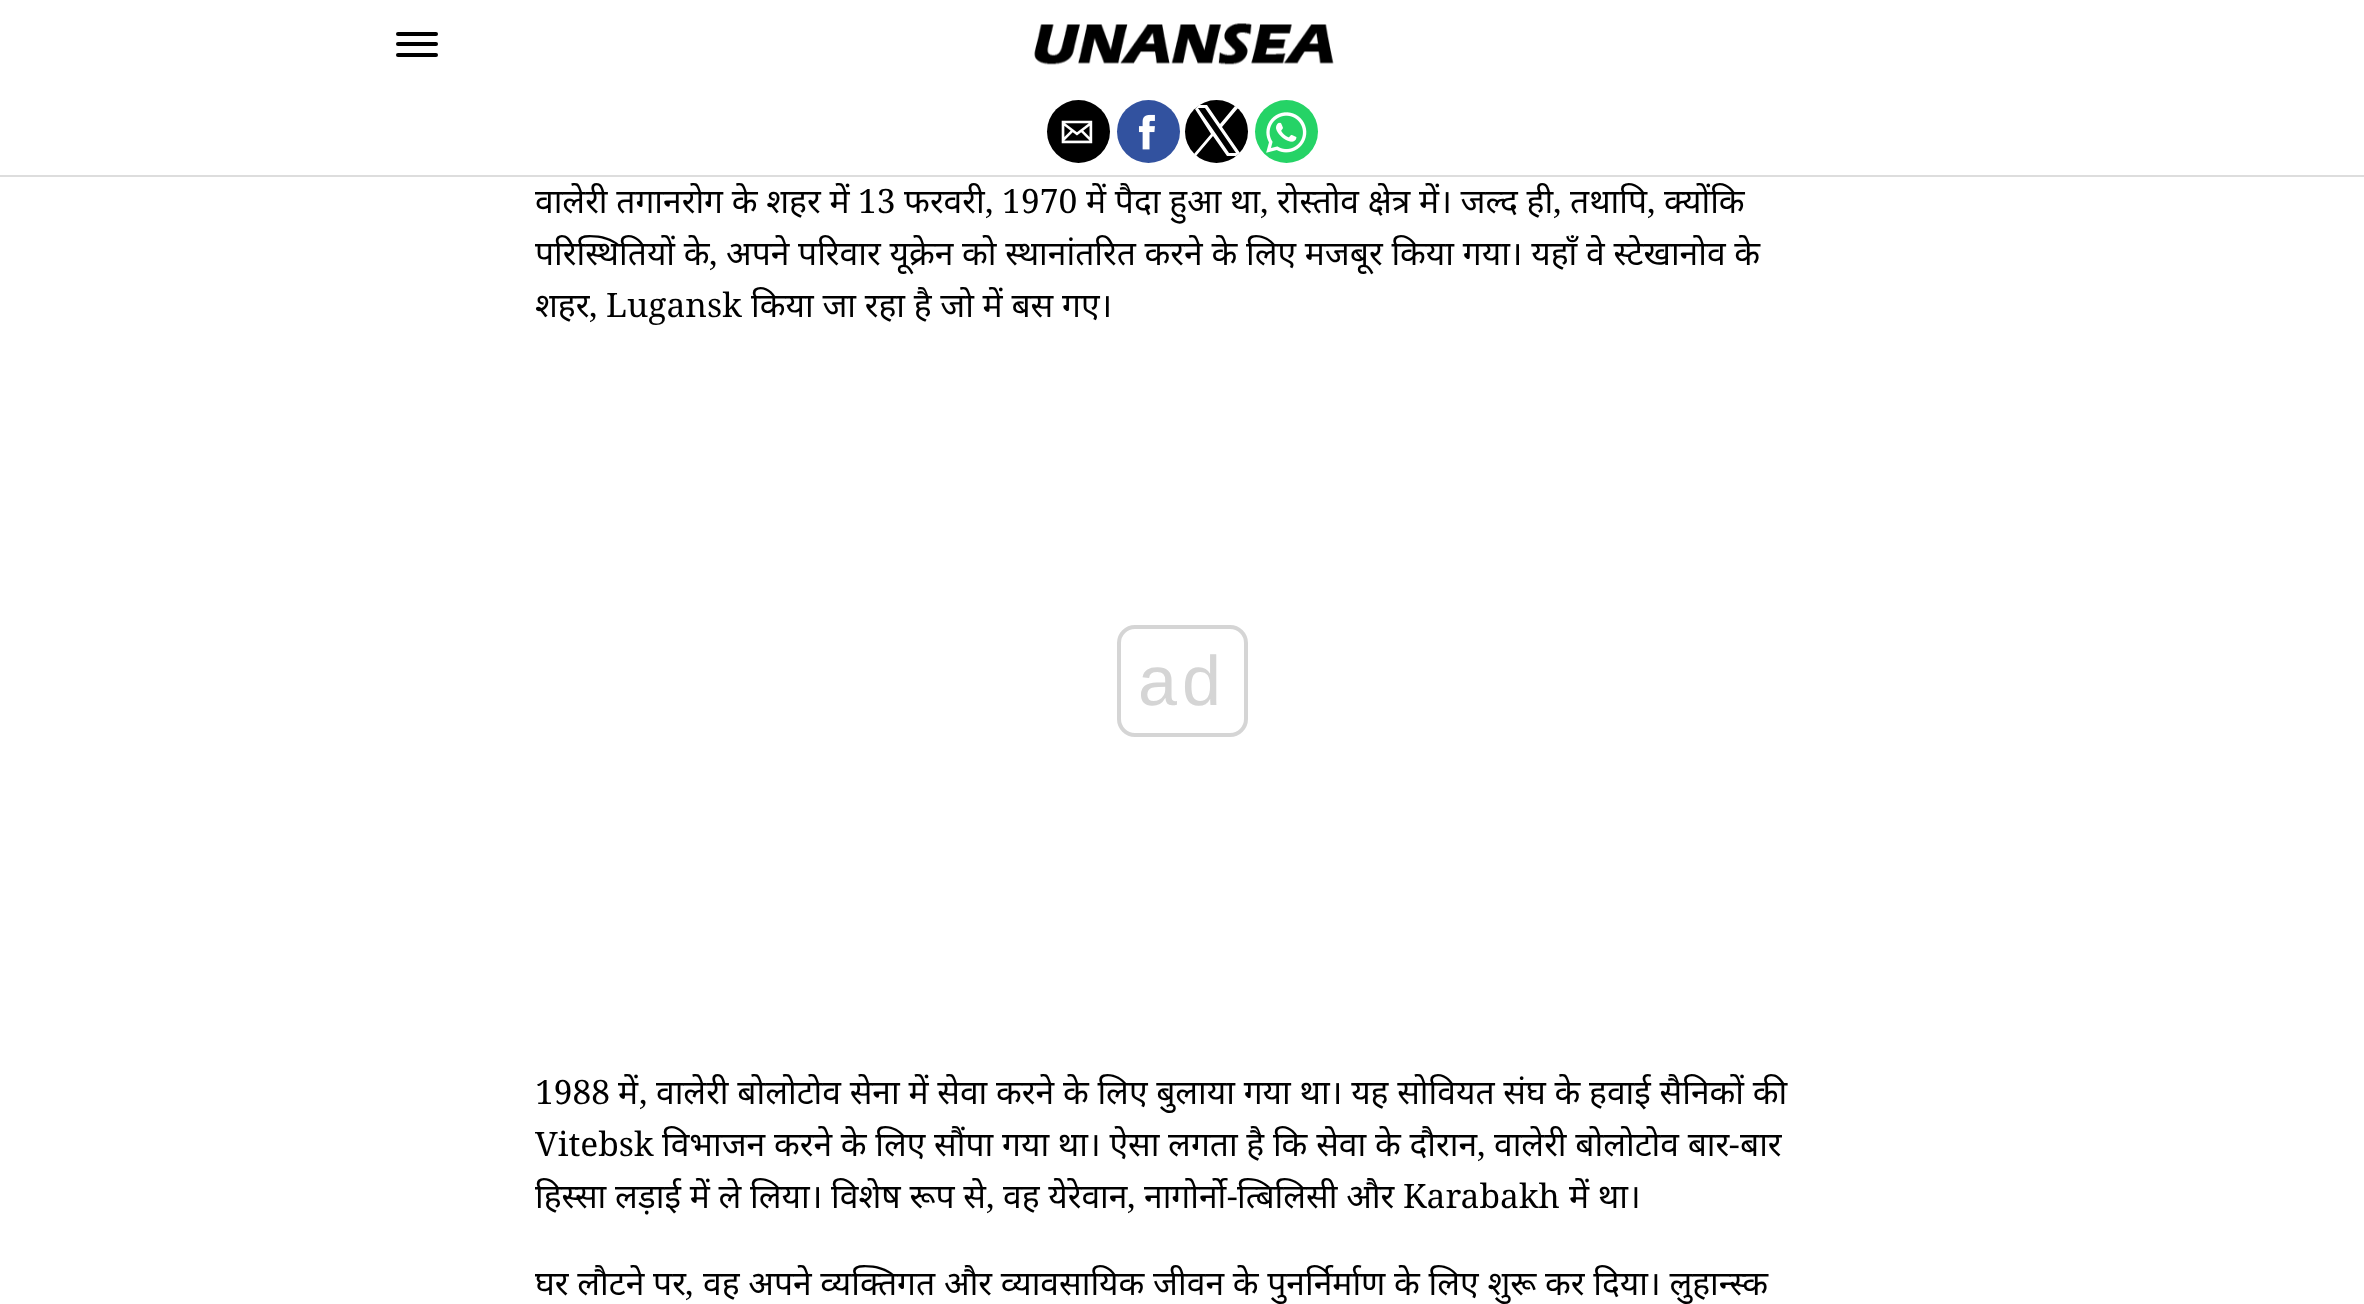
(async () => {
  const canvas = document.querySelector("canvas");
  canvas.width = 2364;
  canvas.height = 1304;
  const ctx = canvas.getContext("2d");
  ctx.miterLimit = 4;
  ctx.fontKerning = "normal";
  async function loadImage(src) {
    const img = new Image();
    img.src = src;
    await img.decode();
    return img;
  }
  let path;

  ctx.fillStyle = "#ffffff";
  ctx.fillRect(0, 0, 2364, 1304);
  ctx.fillStyle = "#000000";
  ctx.beginPath();
  ctx.roundRect(396, 32, 42, 4, 2);
  ctx.fill();
  ctx.beginPath();
  ctx.roundRect(396, 42, 42, 4, 2);
  ctx.fill();
  ctx.beginPath();
  ctx.roundRect(396, 53, 42, 4, 2);
  ctx.fill();
  ctx.drawImage(await loadImage("img/1.png"), 1034, 23, 300, 42);
  ctx.fillStyle = "#dddddd";
  ctx.fillRect(0, 175, 2364, 2);
  ctx.fillStyle = "#000000";
  ctx.beginPath();
  ctx.arc(1078.5, 131.5, 31.5, 0, Math.PI * 2);
  ctx.fill();
  ctx.drawImage(await loadImage("img/2.png"), 1061, 120, 32, 24);
  ctx.fillStyle = "#32529f";
  ctx.beginPath();
  ctx.arc(1148.5, 131.5, 31.5, 0, Math.PI * 2);
  ctx.fill();
  ctx.drawImage(await loadImage("img/3.png"), 1138, 114, 17, 36);
  ctx.fillStyle = "#000000";
  ctx.beginPath();
  ctx.arc(1216.5, 131.5, 31.5, 0, Math.PI * 2);
  ctx.fill();
  ctx.fillStyle = "#ffffff";
  path = new Path2D("M1222 127L1240 153L1236 156H1227L1213 136L1196 156L1194 154L1211 134L1195 109L1199 105H1207L1220 124L1235 106L1238 108ZM1216 134L1229 153H1236L1205 108H1198Z");
  ctx.fill(path, "evenodd");
  ctx.fillStyle = "#25d366";
  ctx.beginPath();
  ctx.arc(1286.5, 131.5, 31.5, 0, Math.PI * 2);
  ctx.fill();
  ctx.drawImage(await loadImage("img/4.png"), 1266, 112, 41, 41);
  ctx.beginPath();
  ctx.roundRect(1119, 627, 127, 108, 16);
  ctx.strokeStyle = "#d5d5d5";
  ctx.lineWidth = 4;
  ctx.stroke();
  ctx.font = "33.6px Noto Sans";
  ctx.fillStyle = "#000000";
  ctx.fillText("वालेरी तगानरोग के शहर में", 535, 213);
  ctx.font = "33.6px Noto Serif";
  ctx.fillText("13", 858, 213);
  ctx.font = "33.6px Noto Sans";
  ctx.fillText("फरवरी", 904, 213);
  ctx.font = "33.6px Noto Serif";
  ctx.fillText(", 1970", 985, 213);
  ctx.font = "33.6px Noto Sans";
  ctx.fillText("में पैदा हुआ था", 1086, 213);
  ctx.font = "33.6px Noto Serif";
  ctx.fillText(",", 1260, 213);
  ctx.font = "33.6px Noto Sans";
  ctx.fillText("रोस्तोव क्षेत्र में। जल्द ही", 1277, 213);
  ctx.font = "33.6px Noto Serif";
  ctx.fillText(",", 1553, 213);
  ctx.font = "33.6px Noto Sans";
  ctx.fillText("तथापि", 1570, 213);
  ctx.font = "33.6px Noto Serif";
  ctx.fillText(",", 1647, 213);
  ctx.font = "33.6px Noto Sans";
  ctx.fillText("क्योंकि", 1664, 213);
  ctx.fillText("परिस्थितियों के", 535, 265);
  ctx.font = "33.6px Noto Serif";
  ctx.fillText(",", 709, 265);
  ctx.font = "33.6px Noto Sans";
  ctx.fillText("अपने परिवार यूक्रेन को स्थानांतरित करने के लिए मजबूर किया गया। यहाँ वे स्टेखानोव के", 726, 265);
  ctx.fillText("शहर", 535, 317);
  ctx.font = "33.6px Noto Serif";
  ctx.fillText(", Lugansk", 589, 317);
  ctx.font = "33.6px Noto Sans";
  ctx.fillText("किया जा रहा है जो में बस गए।", 751, 317);
  ctx.letterSpacing = "5px";
  ctx.font = "70px Liberation Sans";
  ctx.fillStyle = "#d5d5d5";
  ctx.fillText("ad", 1138, 705);
  ctx.letterSpacing = "0px";
  ctx.font = "33.6px Noto Serif";
  ctx.fillStyle = "#000000";
  ctx.fillText("1988", 535, 1104);
  ctx.font = "33.6px Noto Sans";
  ctx.fillText("में", 618, 1104);
  ctx.font = "33.6px Noto Serif";
  ctx.fillText(",", 639, 1104);
  ctx.font = "33.6px Noto Sans";
  ctx.fillText("वालेरी बोलोटोव सेना में सेवा करने के लिए बुलाया गया था। यह सोवियत संघ के हवाई सैनिकों की", 656, 1104);
  ctx.font = "33.6px Noto Serif";
  ctx.fillText("Vitebsk", 535, 1156);
  ctx.font = "33.6px Noto Sans";
  ctx.fillText("विभाजन करने के लिए सौंपा गया था। ऐसा लगता है कि सेवा के दौरान", 662, 1156);
  ctx.fillText("वालेरी बोलोटोव बार", 1494, 1156);
  ctx.font = "33.6px Noto Serif";
  ctx.fillText("-", 1729, 1156);
  ctx.font = "33.6px Noto Sans";
  ctx.fillText("बार", 1740, 1156);
  ctx.font = "33.6px Noto Serif";
  ctx.fillText(",", 1477, 1156);
  ctx.font = "33.6px Noto Sans";
  for (const [text, x, y] of [
    ["हिस्सा लड़ाई में ले लिया। विशेष रूप से", 535, 1208],
    ["वह येरेवान", 1003, 1208],
    ["नागोर्नो", 1144, 1208],
  ]) {
    ctx.fillText(text, x, y);
  }
  ctx.font = "33.6px Noto Serif";
  ctx.fillText("-", 1227, 1208);
  ctx.font = "33.6px Noto Sans";
  ctx.fillText("त्बिलिसी और", 1237, 1208);
  ctx.font = "33.6px Noto Serif";
  ctx.fillText("Karabakh", 1403, 1208);
  ctx.font = "33.6px Noto Sans";
  ctx.fillText("में था।", 1569, 1208);
  ctx.font = "33.6px Noto Serif";
  ctx.fillText(",", 986, 1208);
  ctx.fillText(",", 1127, 1208);
  ctx.font = "33.6px Noto Sans";
  ctx.fillText("घर लौटने पर", 535, 1295);
  ctx.font = "33.6px Noto Serif";
  ctx.fillText(",", 685, 1295);
  ctx.font = "33.6px Noto Sans";
  ctx.fillText("वह अपने व्यक्तिगत और व्यावसायिक जीवन के पुनर्निर्माण के लिए शुरू कर दिया। लुहान्स्क", 703, 1295);
})();
